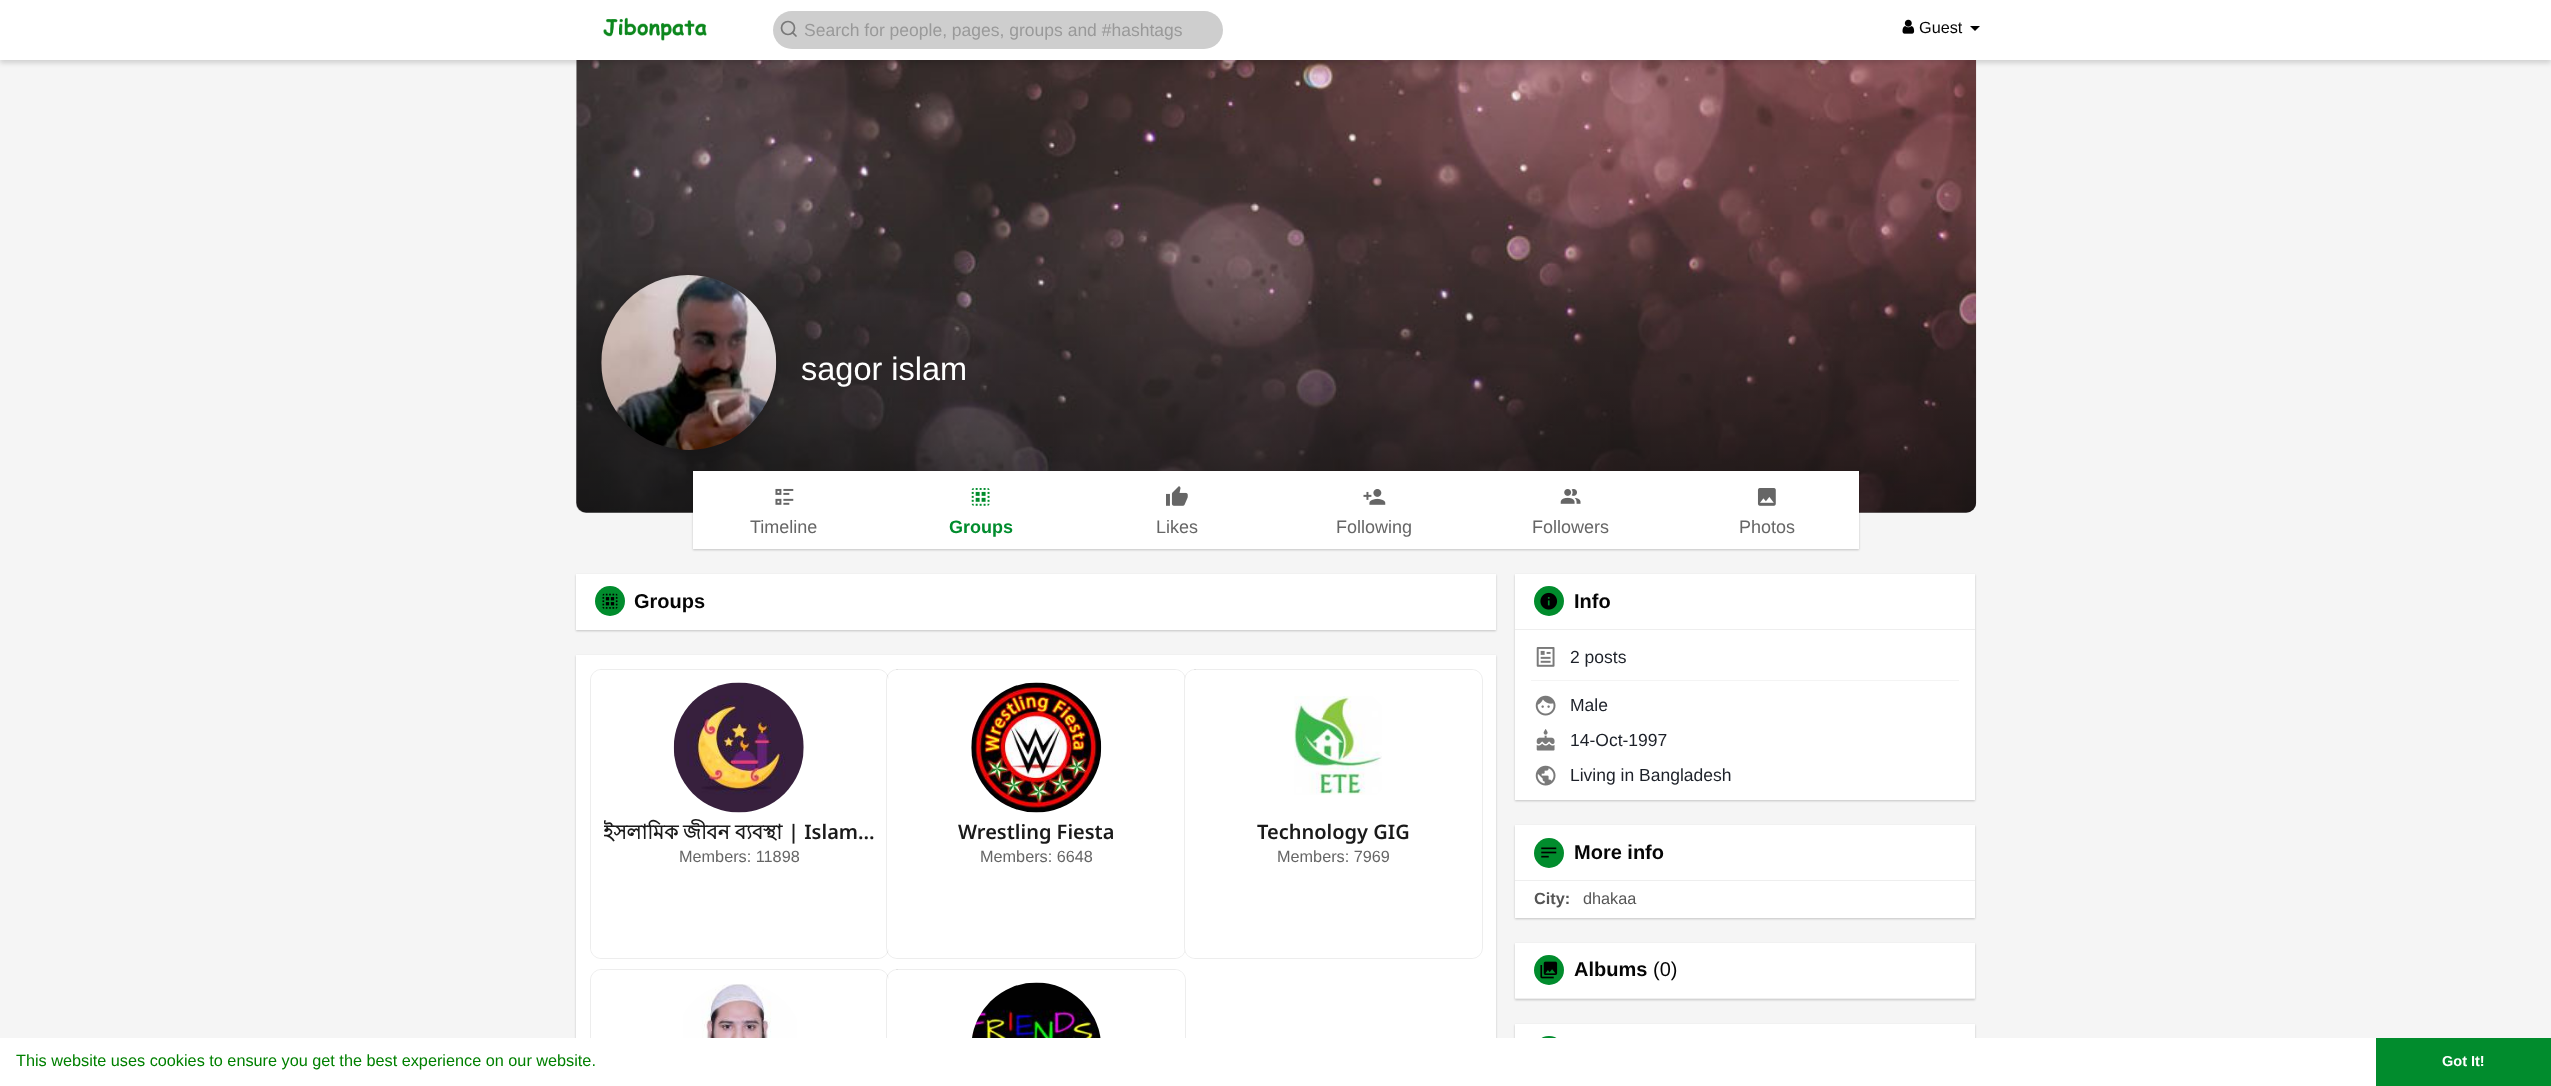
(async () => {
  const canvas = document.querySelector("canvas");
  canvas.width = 2551;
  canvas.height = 1086;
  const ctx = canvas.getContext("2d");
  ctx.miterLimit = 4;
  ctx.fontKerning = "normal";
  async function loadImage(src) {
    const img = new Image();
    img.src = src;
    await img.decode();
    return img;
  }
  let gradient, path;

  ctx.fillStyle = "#f5f5f5";
  ctx.fillRect(0, 0, 2551, 1086);
  ctx.fillStyle = "#ffffff";
  ctx.beginPath();
  ctx.roundRect(576, 56, 1400, 457, [0, 0, 10, 10]);
  ctx.fill();
  ctx.drawImage(await loadImage("img/3.png"), 576, 60, 1401, 453);
  ctx.fillStyle = "rgba(0, 0, 0, 0.15)";
  ctx.filter = "blur(2.5px)";
  ctx.beginPath();
  ctx.rect(0, 3, 2551, 60);
  ctx.fill();
  ctx.filter = "none";
  ctx.fillStyle = "#ffffff";
  ctx.fillRect(0, 0, 2551, 60);
  ctx.drawImage(await loadImage("img/1.png"), 603, 17, 104, 24);
  ctx.fillStyle = "#cecece";
  ctx.beginPath();
  ctx.roundRect(773, 11, 450, 38, 19);
  ctx.fill();
  ctx.beginPath();
  ctx.arc(788, 28, 6.5, 0, Math.PI * 2);
  ctx.strokeStyle = "#787878";
  ctx.lineWidth = 1.7;
  ctx.stroke();
  path = new Path2D("M796 36L792.5 32.5");
  ctx.lineCap = "round";
  ctx.lineJoin = "round";
  ctx.stroke(path);
  ctx.drawImage(await loadImage("img/2.png"), 1902, 19, 13, 15);
  ctx.fillStyle = "#000000";
  path = new Path2D("M1970 26H1980L1975 31Z");
  ctx.fill(path);
  gradient = ctx.createLinearGradient(1276, 262, 1276, 513);
  gradient.addColorStop(0, "rgba(0, 0, 0, 0)");
  gradient.addColorStop(1, "rgba(0, 0, 0, 0.45)");
  ctx.fillStyle = gradient;
  ctx.beginPath();
  ctx.roundRect(576, 263, 1400, 250, 10);
  ctx.fill();
  ctx.fillStyle = "rgba(0, 0, 0, 0.2)";
  ctx.filter = "blur(1px)";
  ctx.beginPath();
  ctx.rect(693, 473, 1166, 77);
  ctx.fill();
  ctx.filter = "none";
  ctx.fillStyle = "#ffffff";
  ctx.fillRect(693, 471, 1166, 78);
  ctx.fillStyle = "rgba(0, 0, 0, 0.15)";
  ctx.filter = "blur(6px)";
  ctx.beginPath();
  ctx.roundRect(601, 278, 175, 175, 87.5);
  ctx.fill();
  ctx.filter = "none";
  ctx.drawImage(await loadImage("img/4.png"), 601, 275, 176, 175);
  ctx.drawImage(await loadImage("img/5.png"), 775, 488, 19, 17);
  ctx.drawImage(await loadImage("img/6.png"), 971, 488, 19, 18);
  ctx.drawImage(await loadImage("img/7.png"), 1166, 486, 22, 20);
  ctx.drawImage(await loadImage("img/8.png"), 1363, 489, 23, 16);
  ctx.drawImage(await loadImage("img/9.png"), 1560, 489, 21, 15);
  ctx.drawImage(await loadImage("img/10.png"), 1757, 488, 19, 18);
  ctx.fillStyle = "rgba(0, 0, 0, 0.2)";
  ctx.filter = "blur(1px)";
  ctx.beginPath();
  ctx.rect(576, 575, 920, 56);
  ctx.fill();
  ctx.filter = "none";
  ctx.fillStyle = "#ffffff";
  ctx.fillRect(576, 574, 920, 56);
  ctx.fillStyle = "#018c2d";
  ctx.beginPath();
  ctx.arc(610, 601, 15, 0, Math.PI * 2);
  ctx.fill();
  ctx.drawImage(await loadImage("img/11.png"), 602, 593, 16, 16);
  ctx.fillStyle = "rgba(0, 0, 0, 0.2)";
  ctx.filter = "blur(1px)";
  ctx.beginPath();
  ctx.rect(576, 656, 920, 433);
  ctx.fill();
  ctx.filter = "none";
  ctx.fillStyle = "#ffffff";
  ctx.fillRect(576, 655, 920, 383);
  ctx.beginPath();
  ctx.roundRect(590.5, 669.5, 298, 289, 10.5);
  ctx.strokeStyle = "#ededed";
  ctx.lineWidth = 1;
  ctx.lineJoin = "miter";
  ctx.stroke();
  ctx.beginPath();
  ctx.roundRect(591, 670, 297, 288, 10);
  ctx.fill();
  ctx.drawImage(await loadImage("img/12.png"), 673, 682, 131, 131);
  ctx.beginPath();
  ctx.roundRect(886.5, 669.5, 299, 289, 10.5);
  ctx.strokeStyle = "rgba(0, 0, 0, 0.07)";
  ctx.stroke();
  ctx.beginPath();
  ctx.roundRect(888, 670, 297, 288, 10);
  ctx.fill();
  ctx.drawImage(await loadImage("img/13.png"), 971, 682, 131, 131);
  ctx.beginPath();
  ctx.roundRect(1184.5, 669.5, 298, 289, 10.5);
  ctx.stroke();
  ctx.beginPath();
  ctx.roundRect(1185, 670, 296, 288, 10);
  ctx.fill();
  ctx.drawImage(await loadImage("img/14.png"), 1294, 696, 88, 99);
  ctx.beginPath();
  ctx.roundRect(590.5, 969.5, 298, 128, 10.5);
  ctx.strokeStyle = "#ededed";
  ctx.stroke();
  ctx.beginPath();
  ctx.roundRect(591, 970, 297, 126, 10);
  ctx.fill();
  ctx.drawImage(await loadImage("img/15.png"), 683, 984, 114, 54);
  ctx.beginPath();
  ctx.roundRect(886.5, 969.5, 299, 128, 10.5);
  ctx.strokeStyle = "rgba(0, 0, 0, 0.07)";
  ctx.stroke();
  ctx.beginPath();
  ctx.roundRect(888, 970, 297, 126, 10);
  ctx.fill();
  ctx.drawImage(await loadImage("img/16.png"), 972, 982, 129, 56);
  ctx.fillStyle = "rgba(0, 0, 0, 0.2)";
  ctx.filter = "blur(1px)";
  ctx.beginPath();
  ctx.rect(1515, 575, 460, 226);
  ctx.fill();
  ctx.filter = "none";
  ctx.fillStyle = "#ffffff";
  ctx.fillRect(1515, 574, 460, 226);
  ctx.fillStyle = "#eeeeee";
  ctx.fillRect(1515, 629, 460, 1);
  ctx.fillStyle = "#018c2d";
  ctx.beginPath();
  ctx.arc(1549, 601, 15, 0, Math.PI * 2);
  ctx.fill();
  ctx.drawImage(await loadImage("img/17.png"), 1540, 592, 18, 18);
  ctx.drawImage(await loadImage("img/18.png"), 1536, 647, 19, 20);
  ctx.fillStyle = "#f4f4f4";
  ctx.fillRect(1531, 680, 428, 1);
  ctx.drawImage(await loadImage("img/19.png"), 1535, 695, 21, 21);
  ctx.drawImage(await loadImage("img/20.png"), 1536, 729, 19, 22);
  ctx.drawImage(await loadImage("img/21.png"), 1535, 765, 21, 21);
  ctx.fillStyle = "rgba(0, 0, 0, 0.2)";
  ctx.filter = "blur(1px)";
  ctx.beginPath();
  ctx.rect(1515, 826, 460, 93);
  ctx.fill();
  ctx.filter = "none";
  ctx.fillStyle = "#ffffff";
  ctx.fillRect(1515, 825, 460, 93);
  ctx.fillStyle = "#eeeeee";
  ctx.fillRect(1515, 880, 460, 1);
  ctx.fillStyle = "#018c2d";
  ctx.beginPath();
  ctx.arc(1549, 853, 15, 0, Math.PI * 2);
  ctx.fill();
  ctx.drawImage(await loadImage("img/22.png"), 1541, 847, 16, 11);
  ctx.fillStyle = "rgba(0, 0, 0, 0.2)";
  ctx.filter = "blur(1px)";
  ctx.beginPath();
  ctx.rect(1515, 944, 460, 56);
  ctx.fill();
  ctx.filter = "none";
  ctx.fillStyle = "#ffffff";
  ctx.fillRect(1515, 943, 460, 55);
  ctx.fillStyle = "#eeeeee";
  ctx.fillRect(1515, 998, 460, 1);
  ctx.fillStyle = "#018c2d";
  ctx.beginPath();
  ctx.arc(1549, 970, 15, 0, Math.PI * 2);
  ctx.fill();
  ctx.drawImage(await loadImage("img/23.png"), 1540, 961, 18, 18);
  ctx.fillStyle = "rgba(0, 0, 0, 0.2)";
  ctx.filter = "blur(1px)";
  ctx.beginPath();
  ctx.rect(1515, 1025, 460, 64);
  ctx.fill();
  ctx.filter = "none";
  ctx.fillStyle = "#ffffff";
  ctx.fillRect(1515, 1024, 460, 14);
  ctx.fillStyle = "#018c2d";
  ctx.beginPath();
  ctx.arc(1549, 1051, 15, 0, Math.PI * 2);
  ctx.fill();
  ctx.fillStyle = "#ffffff";
  ctx.fillRect(0, 1038, 2376, 48);
  ctx.fillStyle = "#018c2d";
  ctx.fillRect(2376, 1038, 175, 48);
  ctx.font = "17.5px Liberation Sans";
  ctx.fillStyle = "#999999";
  ctx.fillText("Search for people, pages, groups and #hashtags", 804, 36);
  ctx.font = "16.25px Liberation Sans";
  ctx.fillStyle = "#050505";
  ctx.fillText("Guest", 1919, 33);
  ctx.font = "32.5px Liberation Sans";
  ctx.fillStyle = "#ffffff";
  ctx.fillText("sagor islam", 801, 380);
  ctx.font = "18px Liberation Sans";
  ctx.fillStyle = "#666666";
  ctx.fillText("Timeline", 750, 533);
  ctx.font = "bold 18px Liberation Sans";
  ctx.fillStyle = "#018c2d";
  ctx.fillText("Groups", 949, 533);
  ctx.font = "18px Liberation Sans";
  ctx.fillStyle = "#666666";
  for (const [text, x, y] of [
    ["Likes", 1156, 533],
    ["Following", 1336, 533],
    ["Followers", 1532, 533],
    ["Photos", 1739, 533],
  ]) {
    ctx.fillText(text, x, y);
  }
  ctx.font = "bold 20px Liberation Sans";
  ctx.fillStyle = "#050505";
  ctx.fillText("Groups", 634, 608);
  ctx.save();
  ctx.beginPath();
  ctx.rect(604, 818, 271, 28);
  ctx.clip();
  ctx.font = "bold 20px Lohit Bengali";
  ctx.fillStyle = "#1a1a1a";
  ctx.fillText("ইসলামিক", 603, 839);
  ctx.restore();
  ctx.font = "bold 20px Lohit Bengali";
  ctx.fillStyle = "#1a1a1a";
  ctx.fillText("জীবন", 683, 839);
  ctx.fillText("ব্যবস্থা", 735, 839);
  ctx.font = "600 20px Noto Sans";
  ctx.fillText("| Islam…", 788, 839);
  ctx.font = "16.25px Liberation Sans";
  ctx.fillStyle = "#666666";
  ctx.fillText("Members: 11898", 679, 862);
  ctx.font = "600 20px Noto Sans";
  ctx.fillStyle = "#1a1a1a";
  ctx.fillText("Wrestling Fiesta", 958, 839);
  ctx.font = "16.25px Liberation Sans";
  ctx.fillStyle = "#666666";
  ctx.fillText("Members: 6648", 980, 862);
  ctx.font = "600 20px Noto Sans";
  ctx.fillStyle = "#1a1a1a";
  ctx.fillText("Technology GIG", 1257, 839);
  ctx.font = "16.25px Liberation Sans";
  ctx.fillStyle = "#666666";
  ctx.fillText("Members: 7969", 1277, 862);
  ctx.font = "bold 20px Liberation Sans";
  ctx.fillStyle = "#050505";
  ctx.fillText("Info", 1574, 608);
  ctx.font = "17.5px Liberation Sans";
  ctx.fillStyle = "#1d2129";
  for (const [text, x, y] of [
    ["2 posts", 1570, 663],
    ["Male", 1570, 711],
    ["14-Oct-1997", 1570, 746],
    ["Living in Bangladesh", 1570, 781],
  ]) {
    ctx.fillText(text, x, y);
  }
  ctx.font = "bold 20px Liberation Sans";
  ctx.fillStyle = "#050505";
  ctx.fillText("More info", 1574, 859);
  ctx.font = "bold 16.25px Liberation Sans";
  ctx.fillStyle = "#555555";
  ctx.fillText("City:", 1534, 904);
  ctx.font = "16.25px Liberation Sans";
  ctx.fillText("dhakaa", 1583, 904);
  ctx.font = "bold 20px Liberation Sans";
  ctx.fillStyle = "#050505";
  ctx.fillText("Albums", 1574, 976);
  ctx.font = "20px Liberation Sans";
  ctx.fillText("(0)", 1653, 976);
  ctx.font = "16.25px Liberation Sans";
  ctx.fillStyle = "#008000";
  ctx.fillText("This website uses cookies to ensure you get the best experience on our website.", 16, 1066);
  ctx.font = "bold 14.5px Liberation Sans";
  ctx.fillStyle = "#ffffff";
  ctx.fillText("Got It!", 2442, 1066);
})();
